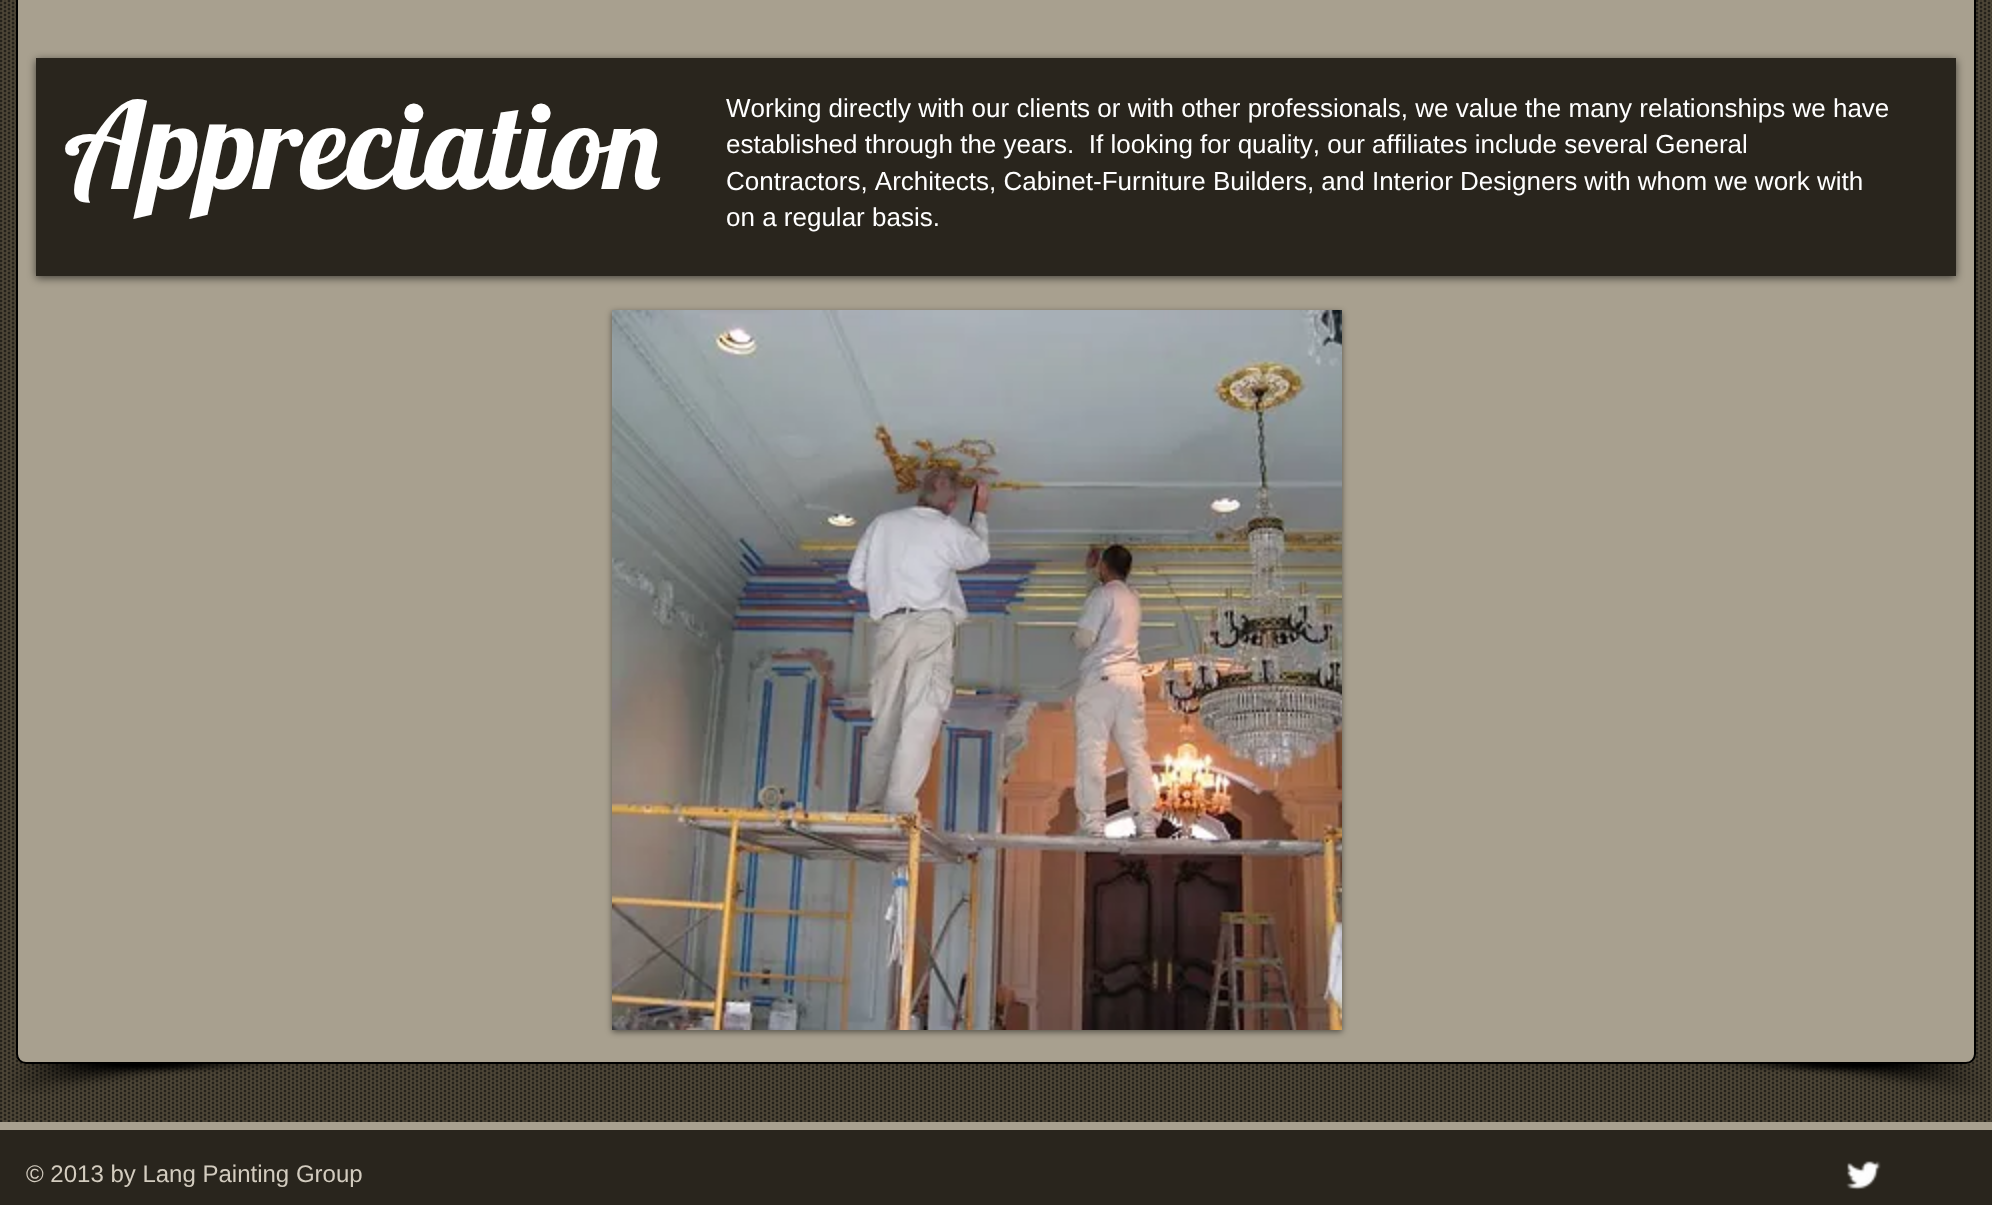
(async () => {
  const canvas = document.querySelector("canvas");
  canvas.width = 1992;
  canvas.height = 1205;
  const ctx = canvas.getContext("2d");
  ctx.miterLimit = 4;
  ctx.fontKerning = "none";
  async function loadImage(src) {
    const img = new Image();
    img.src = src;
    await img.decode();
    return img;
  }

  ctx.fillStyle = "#534b3b";
  ctx.fillRect(0, 0, 1992, 1205);
  ctx.drawImage(await loadImage("img/1.png"), 0, 0, 1992, 1122);
  ctx.fillStyle = "#a8a08f";
  ctx.beginPath();
  ctx.roundRect(17, -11, 1958, 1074, 9);
  ctx.fill();
  ctx.strokeStyle = "#000000";
  ctx.lineWidth = 2;
  ctx.stroke();
  ctx.drawImage(await loadImage("img/2.png"), 10, 1064, 266, 30);
  ctx.drawImage(await loadImage("img/3.png"), 1715, 1064, 269, 31);
  ctx.fillStyle = "rgba(0, 0, 0, 0.6)";
  ctx.filter = "blur(4px)";
  ctx.beginPath();
  ctx.rect(36, 60, 1920, 218);
  ctx.fill();
  ctx.filter = "none";
  ctx.fillStyle = "#29251d";
  ctx.fillRect(36, 58, 1920, 218);
  ctx.fillStyle = "rgba(0, 0, 0, 0.5)";
  ctx.filter = "blur(3px)";
  ctx.beginPath();
  ctx.rect(612, 312, 730, 720);
  ctx.fill();
  ctx.filter = "none";
  ctx.drawImage(await loadImage("img/4.png"), 612, 310, 730, 720);
  ctx.fillStyle = "#29251d";
  ctx.fillRect(0, 1130, 1992, 75);
  ctx.fillStyle = "#a8a08f";
  ctx.fillRect(0, 1122, 1992, 8);
  ctx.drawImage(await loadImage("img/5.png"), 1846, 1161, 35, 29);
  ctx.font = "120px Lobster";
  ctx.fillStyle = "#ffffff";
  ctx.fillText("Appreciation", 64, 189);
  ctx.font = "26px Liberation Sans";
  for (const [text, x, y] of [
    ["Working directly with our clients or with other professionals, we value the many relationships we have", 726, 117],
    ["established through the years.  If looking for quality, our affiliates include several General", 726, 153],
    ["Contractors, Architects, Cabinet-Furniture Builders, and Interior Designers with whom we work with", 726, 190],
    ["on a regular basis.", 726, 226],
  ]) {
    ctx.fillText(text, x, y);
  }
  ctx.font = "24px Liberation Sans";
  ctx.fillStyle = "#d3ccbf";
  ctx.fillText("© 2013 by Lang Painting Group", 26, 1182);
})();
